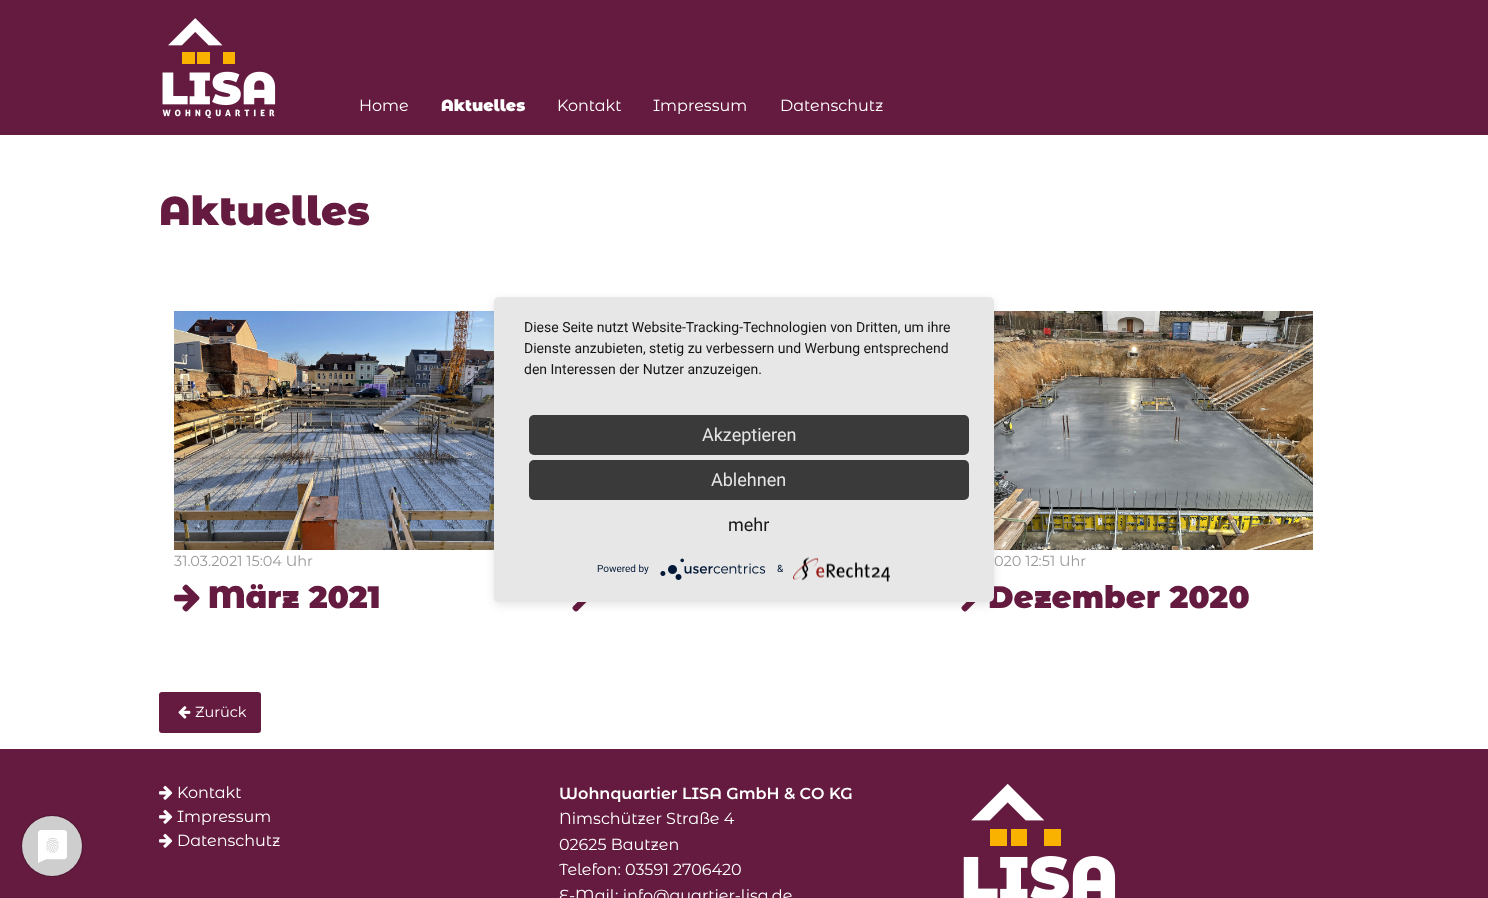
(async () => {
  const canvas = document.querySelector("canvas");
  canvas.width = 1488;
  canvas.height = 898;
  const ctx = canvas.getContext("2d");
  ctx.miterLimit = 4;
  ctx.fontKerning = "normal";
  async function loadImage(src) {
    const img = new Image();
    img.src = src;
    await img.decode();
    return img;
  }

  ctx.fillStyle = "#ffffff";
  ctx.fillRect(0, 0, 1488, 898);
  ctx.fillStyle = "#651b3f";
  ctx.fillRect(0, 0, 1488, 135);
  ctx.drawImage(await loadImage("img/1.png"), 162, 18, 114, 101);
  ctx.drawImage(await loadImage("img/2.png"), 174, 311, 320, 239);
  ctx.drawImage(await loadImage("img/3.png"), 174, 584, 26, 28);
  ctx.drawImage(await loadImage("img/4.png"), 572, 602, 15, 10);
  ctx.drawImage(await loadImage("img/5.png"), 994, 311, 319, 239);
  ctx.drawImage(await loadImage("img/4.png"), 961, 602, 15, 10);
  ctx.beginPath();
  ctx.roundRect(159, 692, 102, 41, 3);
  ctx.fill();
  ctx.drawImage(await loadImage("img/6.png"), 178, 706, 13, 13);
  ctx.fillRect(0, 749, 1488, 149);
  ctx.drawImage(await loadImage("img/7.png"), 159, 785, 14, 15);
  ctx.drawImage(await loadImage("img/7.png"), 159, 809, 14, 15);
  ctx.drawImage(await loadImage("img/7.png"), 159, 833, 14, 15);
  ctx.drawImage(await loadImage("img/8.png"), 963, 783, 153, 115);
  ctx.fillStyle = "rgba(0, 0, 0, 0.1)";
  ctx.filter = "blur(5px)";
  ctx.beginPath();
  ctx.roundRect(494, 300, 500, 305, 5);
  ctx.fill();
  ctx.filter = "none";
  ctx.save();
  ctx.beginPath();
  ctx.roundRect(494, 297, 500, 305, 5);
  ctx.clip();
  ctx.fillStyle = "rgba(0, 0, 0, 0.3)";
  ctx.filter = "blur(18px)";
  ctx.beginPath();
  ctx.rect(494, 303, 500, 305);
  ctx.fill();
  ctx.filter = "none";
  ctx.restore();
  ctx.drawImage(await loadImage("img/11.png"), 21, 815, 62, 62);
  ctx.font = "16px Montserrat Alternates";
  ctx.fillStyle = "#ffffff";
  ctx.fillText("Home", 359, 111);
  ctx.font = "900 16px Montserrat Alternates";
  ctx.fillText("Aktuelles", 441, 111);
  ctx.font = "16px Montserrat Alternates";
  for (const [text, x, y] of [
    ["Kontakt", 557, 111],
    ["Impressum", 653, 111],
    ["Datenschutz", 780, 111],
  ]) {
    ctx.fillText(text, x, y);
  }
  ctx.font = "900 40px Montserrat Alternates";
  ctx.fillStyle = "#651b3f";
  ctx.fillText("Aktuelles", 159, 225);
  ctx.font = "14.5px Montserrat Alternates";
  ctx.fillStyle = "#999999";
  ctx.fillText("31.03.2021 15:04 Uhr", 174, 566);
  ctx.font = "900 31px Montserrat Alternates";
  ctx.fillStyle = "#651b3f";
  ctx.fillText("März 2021", 208, 608);
  ctx.font = "14.5px Montserrat Alternates";
  ctx.fillStyle = "#999999";
  ctx.fillText("020 12:51 Uhr", 994, 566);
  ctx.font = "900 31px Montserrat Alternates";
  ctx.fillStyle = "#651b3f";
  ctx.fillText("Dezember 2020", 988, 608);
  ctx.font = "14.5px Montserrat Alternates";
  ctx.fillStyle = "#ffffff";
  ctx.fillText("Zurück", 195, 717);
  ctx.font = "16px Montserrat Alternates";
  for (const [text, x, y] of [
    ["Kontakt", 177, 798],
    ["Impressum", 177, 822],
    ["Datenschutz", 177, 846],
  ]) {
    ctx.fillText(text, x, y);
  }
  ctx.font = "600 16px Montserrat Alternates";
  ctx.fillText("Wohnquartier LISA GmbH & CO KG", 559, 799);
  ctx.font = "16px Montserrat Alternates";
  for (const [text, x, y] of [
    ["Nimschützer Straße 4", 559, 824],
    ["02625 Bautzen", 559, 850],
    ["Telefon: 03591 2706420", 559, 875],
    ["E-Mail: info@quartier-lisa.de", 559, 901],
  ]) {
    ctx.fillText(text, x, y);
  }
  ctx.fillStyle = "#e7e7e7";
  ctx.beginPath();
  ctx.roundRect(494, 297, 500, 305, 5);
  ctx.fill();
  ctx.font = "14px Roboto";
  ctx.fillStyle = "#161616";
  for (const [text, x, y] of [
    ["Diese Seite nutzt Website-Tracking-Technologien von Dritten, um ihre", 524, 332],
    ["Dienste anzubieten, stetig zu verbessern und Werbung entsprechend", 524, 353],
    ["den Interessen der Nutzer anzuzeigen.", 524, 374],
  ]) {
    ctx.fillText(text, x, y);
  }
  ctx.fillStyle = "#3a3a3a";
  ctx.beginPath();
  ctx.roundRect(529, 415, 440, 40, 5);
  ctx.fill();
  ctx.font = "18px Roboto";
  ctx.fillStyle = "#e6e6e6";
  ctx.fillText("Akzeptieren", 702, 441);
  ctx.fillStyle = "#3a3a3a";
  ctx.beginPath();
  ctx.roundRect(529, 460, 440, 40, 5);
  ctx.fill();
  ctx.fillStyle = "#e6e6e6";
  ctx.fillText("Ablehnen", 711, 486);
  ctx.fillStyle = "#161616";
  ctx.fillText("mehr", 728, 531);
  ctx.font = "10px Roboto";
  ctx.fillStyle = "#021836";
  ctx.fillText("Powered by", 597, 572);
  ctx.drawImage(await loadImage("img/9.png"), 660, 558, 106, 22);
  ctx.fillText("&", 777, 572);
  ctx.drawImage(await loadImage("img/10.png"), 793, 557, 97, 25);
})();
